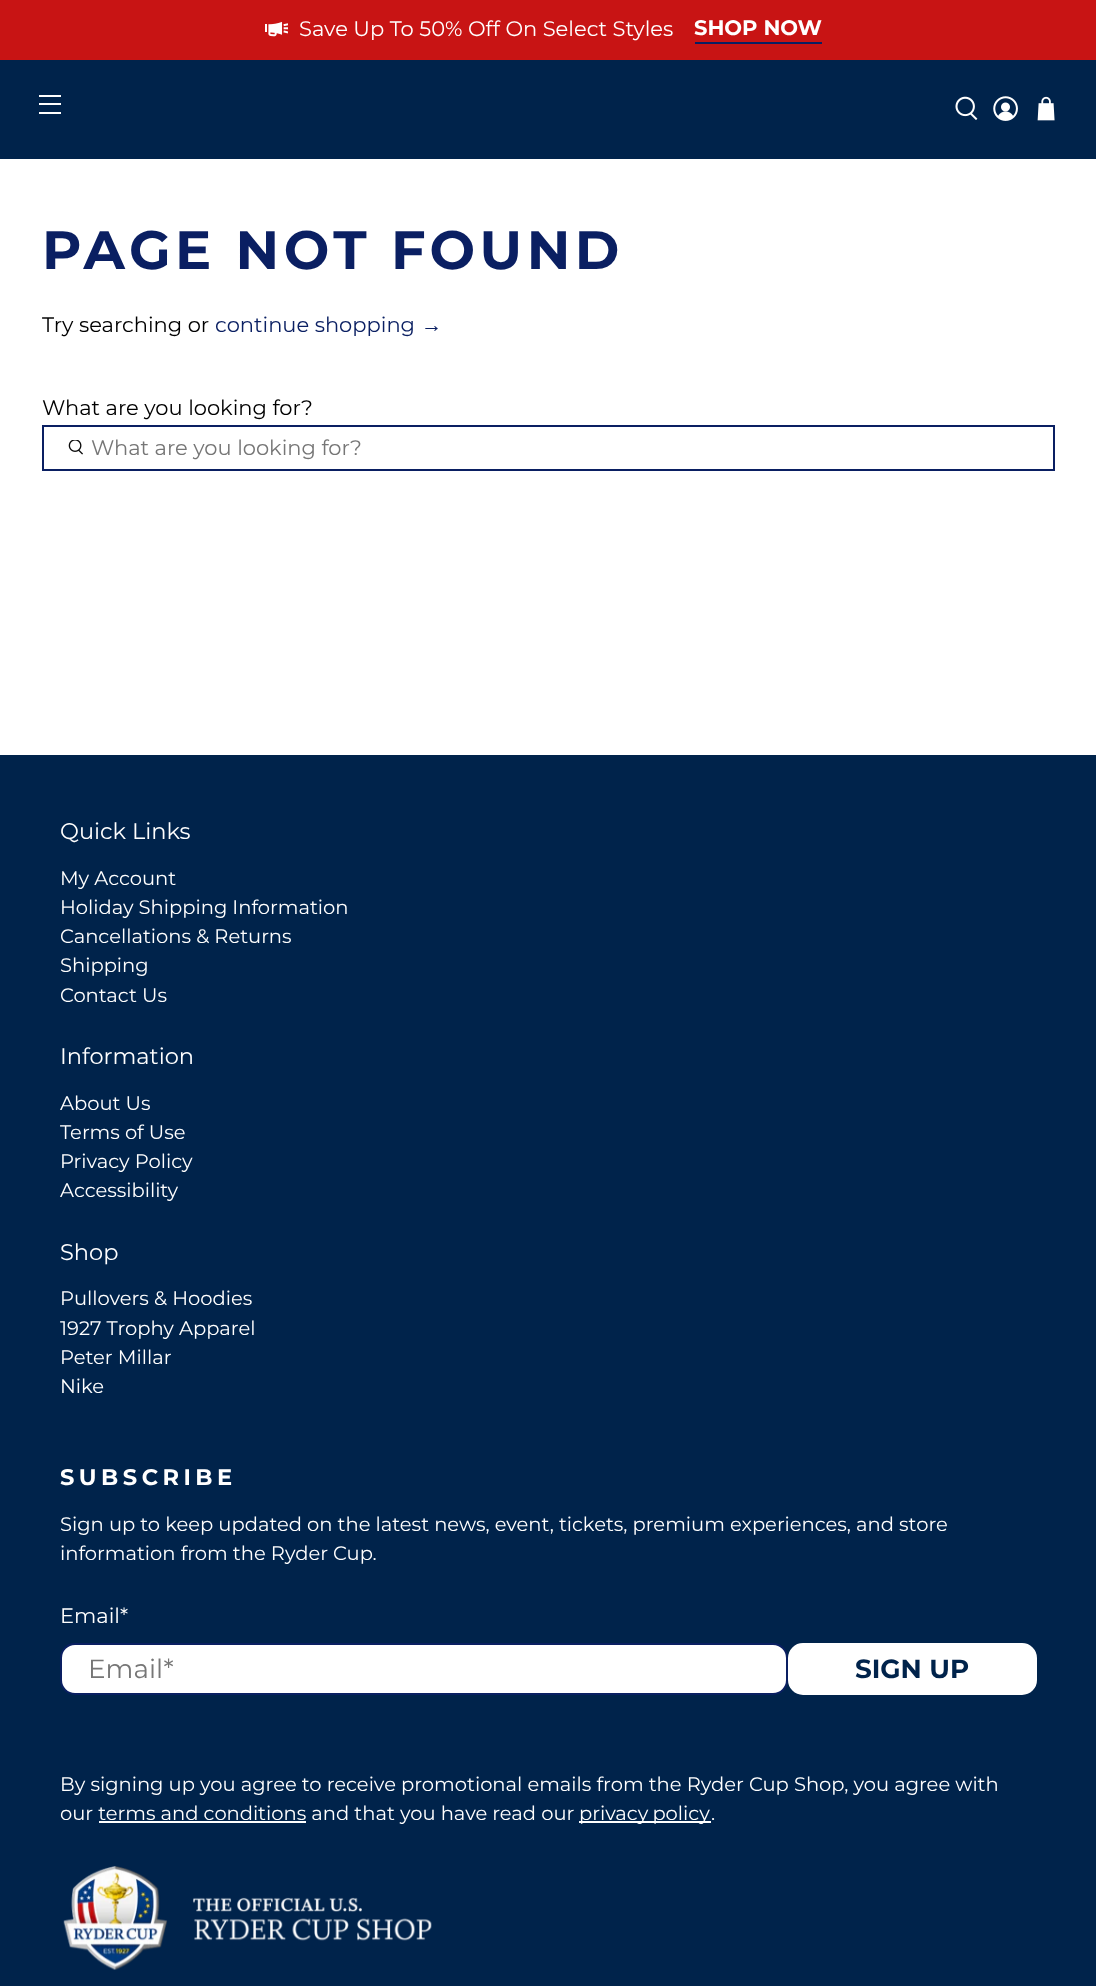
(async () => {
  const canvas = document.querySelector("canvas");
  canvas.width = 1096;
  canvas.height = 1986;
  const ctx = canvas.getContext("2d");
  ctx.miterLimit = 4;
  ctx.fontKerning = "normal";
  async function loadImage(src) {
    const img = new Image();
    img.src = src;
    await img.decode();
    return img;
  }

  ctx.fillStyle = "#ffffff";
  ctx.fillRect(0, 0, 1096, 1986);
  ctx.fillStyle = "#c81414";
  ctx.fillRect(0, 0, 1096, 60);
  ctx.drawImage(await loadImage("img/1.png"), 265, 21, 23, 16);
  for (const [x, y, w, h, color] of [
    [695, 42, 127, 2, "#0a1f62"],
    [0, 60, 1096, 99, "#00234b"],
    [39, 95, 22, 2, "#ffffff"],
    [39, 103, 22, 2, "#ffffff"],
    [39, 112, 22, 2, "#ffffff"],
  ]) {
    ctx.fillStyle = color;
    ctx.fillRect(x, y, w, h);
  }
  ctx.drawImage(await loadImage("img/2.png"), 955, 96, 23, 24);
  ctx.drawImage(await loadImage("img/3.png"), 993, 96, 25, 25);
  ctx.drawImage(await loadImage("img/4.png"), 1037, 96, 18, 25);
  ctx.strokeStyle = "#0a1f62";
  ctx.lineWidth = 2;
  ctx.strokeRect(43, 426, 1011, 44);
  ctx.drawImage(await loadImage("img/5.png"), 68, 440, 15, 15);
  ctx.fillStyle = "#00234b";
  ctx.fillRect(0, 755, 1096, 1231);
  ctx.fillStyle = "#ffffff";
  ctx.beginPath();
  ctx.roundRect(61, 1644, 726, 50, 14);
  ctx.fill();
  ctx.stroke();
  ctx.beginPath();
  ctx.roundRect(789, 1644, 247, 50, 14);
  ctx.fill();
  ctx.strokeStyle = "#ffffff";
  ctx.stroke();
  ctx.fillRect(579, 1821, 132, 2);
  ctx.fillRect(99, 1821, 207, 2);
  ctx.drawImage(await loadImage("img/6.png"), 63, 1866, 369, 104);
  ctx.font = "21px Montserrat";
  ctx.fillText("Save Up To 50% Off On Select Styles", 299, 36);
  ctx.font = "bold 21px Montserrat";
  ctx.fillText("SHOP NOW", 694, 35);
  ctx.letterSpacing = "4.5px";
  ctx.font = "bold 54px Montserrat";
  ctx.fillStyle = "#0a1f62";
  ctx.fillText("PAGE NOT FOUND", 42, 269);
  ctx.letterSpacing = "0px";
  ctx.font = "21px Montserrat";
  ctx.fillStyle = "#000000";
  ctx.fillText("Try searching or", 42, 332);
  ctx.fillStyle = "#0a1f62";
  ctx.fillText("continue shopping", 215, 332);
  ctx.font = "21px Liberation Sans";
  ctx.fillText("→", 421, 332);
  ctx.font = "21px Montserrat";
  ctx.fillStyle = "#000000";
  ctx.fillText("What are you looking for?", 42, 415);
  ctx.fillStyle = "#767676";
  ctx.fillText("What are you looking for?", 91, 455);
  ctx.font = "22.5px Montserrat";
  ctx.fillStyle = "#ffffff";
  ctx.fillText("Quick Links", 60, 839);
  ctx.font = "19.5px Montserrat";
  for (const [text, x, y] of [
    ["My Account", 60, 885],
    ["Holiday Shipping Information", 60, 914],
    ["Cancellations & Returns", 60, 943],
    ["Shipping", 60, 972],
    ["Contact Us", 60, 1002],
  ]) {
    ctx.fillText(text, x, y);
  }
  ctx.font = "22.5px Montserrat";
  ctx.fillText("Information", 60, 1064);
  ctx.font = "19.5px Montserrat";
  for (const [text, x, y] of [
    ["About Us", 60, 1110],
    ["Terms of Use", 60, 1139],
    ["Privacy Policy", 60, 1168],
    ["Accessibility", 60, 1197],
  ]) {
    ctx.fillText(text, x, y);
  }
  ctx.font = "22.5px Montserrat";
  ctx.fillText("Shop", 60, 1260);
  ctx.font = "19.5px Montserrat";
  for (const [text, x, y] of [
    ["Pullovers & Hoodies", 60, 1305],
    ["1927 Trophy Apparel", 60, 1335],
    ["Peter Millar", 60, 1364],
    ["Nike", 60, 1393],
  ]) {
    ctx.fillText(text, x, y);
  }
  ctx.letterSpacing = "4.5px";
  ctx.font = "bold 22.5px Montserrat";
  ctx.fillText("SUBSCRIBE", 60, 1485);
  ctx.letterSpacing = "0px";
  ctx.font = "19.5px Montserrat";
  ctx.fillText("Sign up to keep updated on the latest news, event, tickets, premium experiences, and store", 60, 1531);
  ctx.fillText("information from the Ryder Cup.", 60, 1560);
  ctx.font = "21px Montserrat";
  ctx.fillText("Email", 60, 1623);
  ctx.fillText("*", 120, 1623);
  ctx.font = "26.25px Montserrat";
  ctx.fillStyle = "#767676";
  ctx.fillText("Email*", 88, 1678);
  ctx.font = "bold 26.25px Montserrat";
  ctx.fillStyle = "#00234b";
  ctx.fillText("SIGN UP", 855, 1678);
  ctx.font = "19.5px Montserrat";
  ctx.fillStyle = "#ffffff";
  ctx.fillText("By signing up you agree to receive promotional emails from the Ryder Cup Shop, you agree with", 60, 1791);
  ctx.fillText("our terms and conditions and that you have read our", 60, 1820);
  ctx.wordSpacing = "-1px";
  ctx.fillText("privacy policy", 579, 1820);
  ctx.wordSpacing = "0px";
  ctx.fillText(".", 711, 1820);
})();
